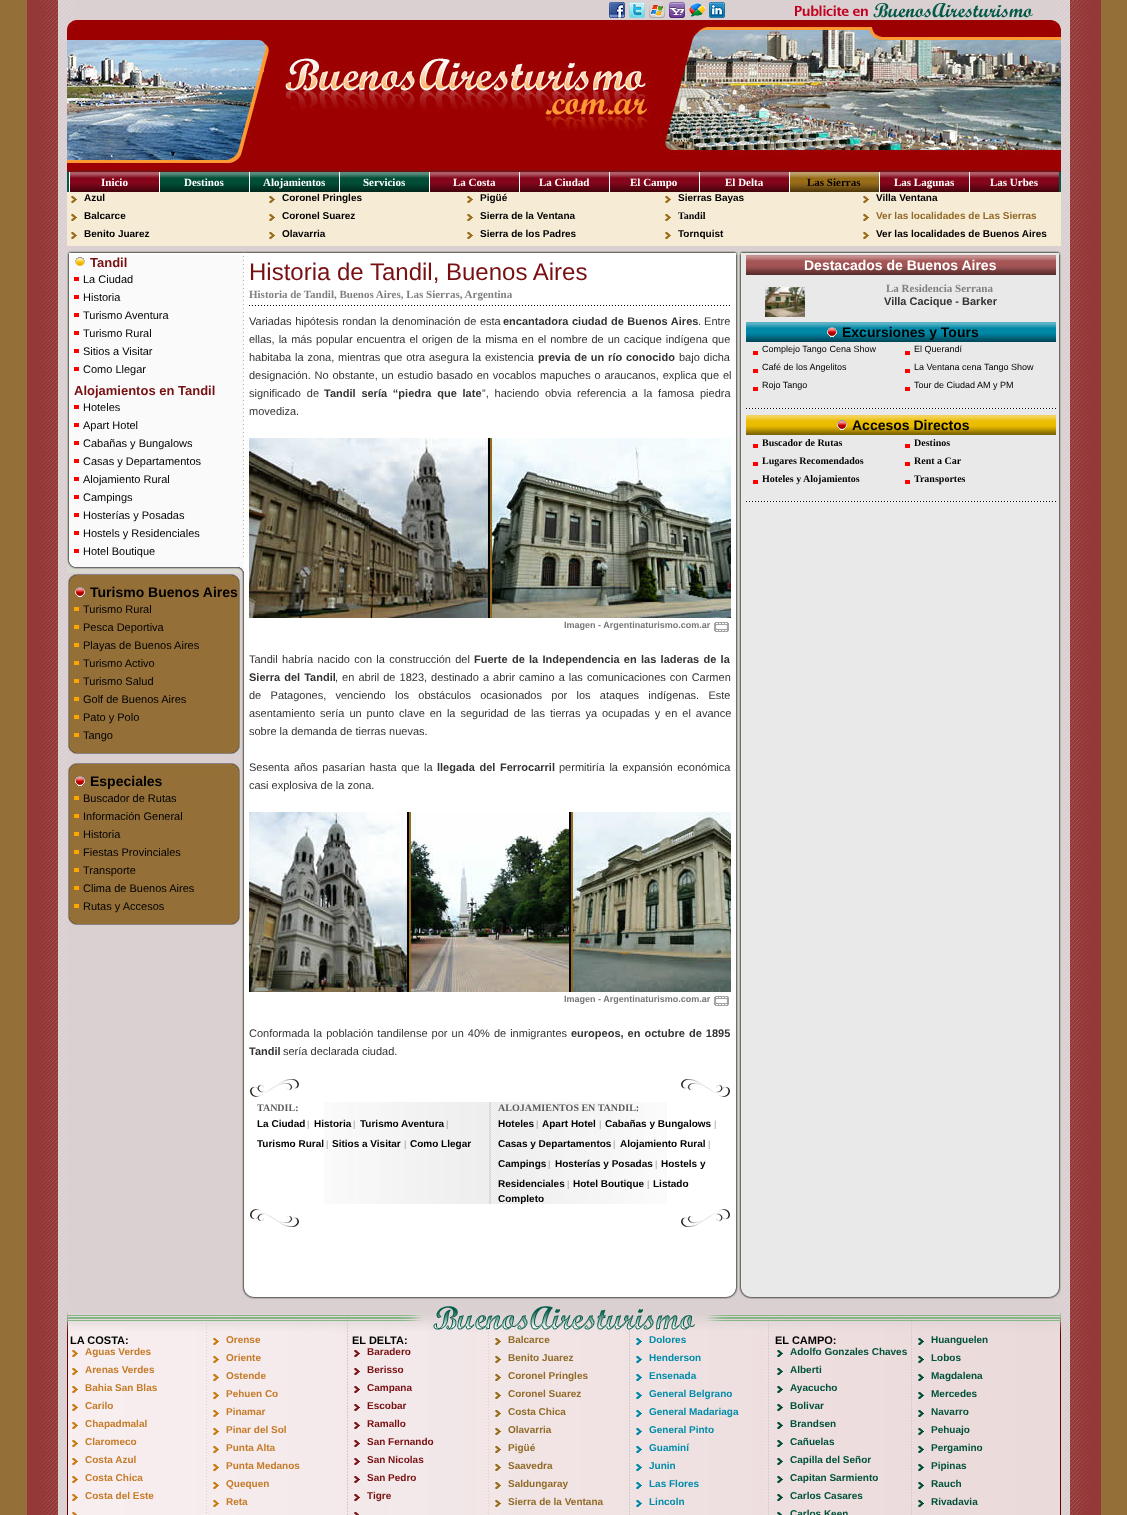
(async () => {
  const canvas = document.querySelector("canvas");
  canvas.width = 1127;
  canvas.height = 1515;
  const ctx = canvas.getContext("2d");
  ctx.miterLimit = 4;
  ctx.fontKerning = "normal";
  async function loadImage(src) {
    const img = new Image();
    img.src = src;
    await img.decode();
    return img;
  }

  ctx.fillStyle = "#946f38";
  ctx.fillRect(0, 0, 1127, 1515);
  ctx.drawImage(await loadImage("img/1.png"), 27, 0, 1074, 1515);
  ctx.drawImage(await loadImage("img/2.png"), 609, 2, 16, 16);
  ctx.drawImage(await loadImage("img/3.png"), 629, 2, 16, 16);
  ctx.drawImage(await loadImage("img/4.png"), 649, 2, 16, 16);
  ctx.drawImage(await loadImage("img/5.png"), 669, 2, 16, 16);
  ctx.drawImage(await loadImage("img/6.png"), 689, 3, 16, 14);
  ctx.drawImage(await loadImage("img/7.png"), 709, 2, 16, 16);
  ctx.drawImage(await loadImage("img/8.png"), 795, 3, 238, 15);
  ctx.drawImage(await loadImage("img/9.png"), 67, 20, 994, 150);
  ctx.fillStyle = "#781012";
  ctx.fillRect(67, 170, 994, 2);
  ctx.fillStyle = "#035a48";
  ctx.fillRect(67, 172, 994, 20);
  ctx.drawImage(await loadImage("img/10.png"), 70, 172, 89, 20);
  ctx.fillStyle = "#ffffff";
  ctx.fillRect(69, 172, 1, 20);
  ctx.drawImage(await loadImage("img/11.png"), 160, 172, 89, 20);
  ctx.fillRect(159, 172, 1, 20);
  ctx.drawImage(await loadImage("img/11.png"), 250, 172, 89, 20);
  ctx.fillRect(249, 172, 1, 20);
  ctx.drawImage(await loadImage("img/11.png"), 340, 172, 89, 20);
  ctx.fillRect(339, 172, 1, 20);
  ctx.drawImage(await loadImage("img/10.png"), 430, 172, 89, 20);
  ctx.fillRect(429, 172, 1, 20);
  ctx.drawImage(await loadImage("img/10.png"), 520, 172, 89, 20);
  ctx.fillRect(519, 172, 1, 20);
  ctx.drawImage(await loadImage("img/10.png"), 610, 172, 89, 20);
  ctx.fillRect(609, 172, 1, 20);
  ctx.drawImage(await loadImage("img/10.png"), 700, 172, 89, 20);
  ctx.fillRect(699, 172, 1, 20);
  ctx.drawImage(await loadImage("img/12.png"), 790, 172, 89, 20);
  ctx.fillRect(789, 172, 1, 20);
  ctx.drawImage(await loadImage("img/10.png"), 880, 172, 89, 20);
  ctx.fillRect(879, 172, 1, 20);
  ctx.drawImage(await loadImage("img/10.png"), 970, 172, 89, 20);
  ctx.fillRect(969, 172, 1, 20);
  ctx.fillStyle = "#f6ebd5";
  ctx.fillRect(67, 192, 994, 54);
  ctx.drawImage(await loadImage("img/13.png"), 71, 196, 6, 7);
  ctx.drawImage(await loadImage("img/13.png"), 71, 214, 6, 7);
  ctx.drawImage(await loadImage("img/13.png"), 71, 232, 6, 7);
  ctx.drawImage(await loadImage("img/13.png"), 269, 196, 6, 7);
  ctx.drawImage(await loadImage("img/13.png"), 269, 214, 6, 7);
  ctx.drawImage(await loadImage("img/13.png"), 269, 232, 6, 7);
  ctx.drawImage(await loadImage("img/13.png"), 467, 196, 6, 7);
  ctx.drawImage(await loadImage("img/13.png"), 467, 214, 6, 7);
  ctx.drawImage(await loadImage("img/13.png"), 467, 232, 6, 7);
  ctx.drawImage(await loadImage("img/13.png"), 665, 196, 6, 7);
  ctx.drawImage(await loadImage("img/13.png"), 665, 214, 6, 7);
  ctx.drawImage(await loadImage("img/13.png"), 665, 232, 6, 7);
  ctx.drawImage(await loadImage("img/13.png"), 863, 196, 6, 7);
  ctx.drawImage(await loadImage("img/13.png"), 863, 214, 6, 7);
  ctx.drawImage(await loadImage("img/13.png"), 863, 232, 6, 7);
  ctx.drawImage(await loadImage("img/14.png"), 67, 251, 994, 4);
  ctx.drawImage(await loadImage("img/15.png"), 67, 255, 994, 1033);
  ctx.drawImage(await loadImage("img/16.png"), 67, 255, 177, 305);
  ctx.drawImage(await loadImage("img/17.png"), 75, 257, 10, 10);
  for (const [x, y, w, h, color] of [
    [74, 277, 5, 4, "#fd0101"],
    [74, 295, 5, 4, "#fd0101"],
    [74, 313, 5, 4, "#fd0101"],
    [74, 331, 5, 4, "#fd0101"],
    [74, 349, 5, 4, "#fd0101"],
    [74, 367, 5, 4, "#fd0101"],
    [74, 405, 5, 4, "#fd0101"],
    [74, 423, 5, 4, "#fd0101"],
    [74, 441, 5, 4, "#fd0101"],
    [74, 459, 5, 4, "#fd0101"],
    [74, 477, 5, 4, "#fd0101"],
    [74, 495, 5, 4, "#fd0101"],
    [74, 513, 5, 4, "#fd0101"],
    [74, 531, 5, 4, "#fd0101"],
    [74, 549, 5, 4, "#fd0101"],
  ]) {
    ctx.fillStyle = color;
    ctx.fillRect(x, y, w, h);
  }
  ctx.drawImage(await loadImage("img/18.png"), 67, 560, 177, 13);
  ctx.drawImage(await loadImage("img/19.png"), 67, 573, 176, 11);
  ctx.drawImage(await loadImage("img/20.png"), 67, 584, 173, 160);
  ctx.drawImage(await loadImage("img/21.png"), 75, 587, 10, 10);
  for (const [x, y, w, h, color] of [
    [74, 607, 5, 4, "#ffa500"],
    [74, 625, 5, 4, "#ffa500"],
    [74, 643, 5, 4, "#ffa500"],
    [74, 661, 5, 4, "#ffa500"],
    [74, 679, 5, 4, "#ffa500"],
    [74, 697, 5, 4, "#ffa500"],
    [74, 715, 5, 4, "#ffa500"],
    [74, 733, 5, 4, "#ffa500"],
  ]) {
    ctx.fillStyle = color;
    ctx.fillRect(x, y, w, h);
  }
  ctx.drawImage(await loadImage("img/22.png"), 67, 744, 176, 11);
  ctx.drawImage(await loadImage("img/19.png"), 67, 762, 176, 11);
  ctx.drawImage(await loadImage("img/23.png"), 67, 773, 173, 142);
  ctx.drawImage(await loadImage("img/21.png"), 75, 776, 10, 10);
  for (const [x, y, w, h, color] of [
    [74, 796, 5, 4, "#ffa500"],
    [74, 814, 5, 4, "#ffa500"],
    [74, 832, 5, 4, "#ffa500"],
    [74, 850, 5, 4, "#ffa500"],
    [74, 868, 5, 4, "#ffa500"],
    [74, 886, 5, 4, "#ffa500"],
    [74, 904, 5, 4, "#ffa500"],
  ]) {
    ctx.fillStyle = color;
    ctx.fillRect(x, y, w, h);
  }
  ctx.drawImage(await loadImage("img/22.png"), 67, 915, 176, 11);
  ctx.drawImage(await loadImage("img/24.png"), 249, 305, 482, 1);
  ctx.drawImage(await loadImage("img/25.png"), 249, 438, 482, 180);
  ctx.drawImage(await loadImage("img/26.png"), 714, 622, 15, 10);
  ctx.drawImage(await loadImage("img/27.png"), 249, 812, 482, 180);
  ctx.drawImage(await loadImage("img/26.png"), 714, 996, 15, 10);
  ctx.drawImage(await loadImage("img/28.png"), 250, 1079, 480, 18);
  ctx.drawImage(await loadImage("img/29.png"), 324, 1102, 343, 102);
  ctx.drawImage(await loadImage("img/30.png"), 250, 1209, 480, 18);
  ctx.drawImage(await loadImage("img/31.png"), 746, 255, 310, 20);
  ctx.drawImage(await loadImage("img/32.png"), 765, 287, 40, 30);
  ctx.drawImage(await loadImage("img/33.png"), 746, 322, 310, 20);
  ctx.drawImage(await loadImage("img/34.png"), 827, 327, 10, 10);
  for (const [x, y, w, h, color] of [
    [753, 351, 5, 4, "#fd0101"],
    [753, 369, 5, 4, "#fd0101"],
    [753, 387, 5, 4, "#fd0101"],
    [905, 351, 5, 4, "#fd0101"],
    [905, 369, 5, 4, "#fd0101"],
    [905, 387, 5, 4, "#fd0101"],
  ]) {
    ctx.fillStyle = color;
    ctx.fillRect(x, y, w, h);
  }
  ctx.drawImage(await loadImage("img/35.png"), 746, 408, 310, 1);
  ctx.drawImage(await loadImage("img/36.png"), 746, 415, 310, 20);
  ctx.drawImage(await loadImage("img/37.png"), 837, 420, 10, 10);
  for (const [x, y, w, h, color] of [
    [753, 444, 5, 4, "#fd0101"],
    [753, 462, 5, 4, "#fd0101"],
    [753, 480, 5, 4, "#fd0101"],
    [905, 444, 5, 4, "#fd0101"],
    [905, 462, 5, 4, "#fd0101"],
    [905, 480, 5, 4, "#fd0101"],
  ]) {
    ctx.fillStyle = color;
    ctx.fillRect(x, y, w, h);
  }
  ctx.drawImage(await loadImage("img/35.png"), 746, 501, 310, 1);
  ctx.drawImage(await loadImage("img/38.png"), 67, 1288, 994, 11);
  ctx.drawImage(await loadImage("img/39.png"), 67, 1306, 994, 28);
  ctx.drawImage(await loadImage("img/40.png"), 68, 1334, 992, 181);
  ctx.fillStyle = "#660000";
  ctx.fillRect(1060, 1334, 1, 181);
  ctx.fillRect(67, 1334, 1, 181);
  ctx.drawImage(await loadImage("img/41.png"), 72, 1350, 6, 7);
  ctx.drawImage(await loadImage("img/41.png"), 72, 1368, 6, 7);
  ctx.drawImage(await loadImage("img/41.png"), 72, 1386, 6, 7);
  ctx.drawImage(await loadImage("img/41.png"), 72, 1404, 6, 7);
  ctx.drawImage(await loadImage("img/41.png"), 72, 1422, 6, 7);
  ctx.drawImage(await loadImage("img/41.png"), 72, 1440, 6, 7);
  ctx.drawImage(await loadImage("img/41.png"), 72, 1458, 6, 7);
  ctx.drawImage(await loadImage("img/41.png"), 72, 1476, 6, 7);
  ctx.drawImage(await loadImage("img/41.png"), 72, 1494, 6, 7);
  ctx.drawImage(await loadImage("img/42.png"), 72, 1512, 5, 3);
  ctx.drawImage(await loadImage("img/43.png"), 213, 1338, 6, 7);
  ctx.drawImage(await loadImage("img/43.png"), 213, 1356, 6, 7);
  ctx.drawImage(await loadImage("img/43.png"), 213, 1374, 6, 7);
  ctx.drawImage(await loadImage("img/43.png"), 213, 1392, 6, 7);
  ctx.drawImage(await loadImage("img/43.png"), 213, 1410, 6, 7);
  ctx.drawImage(await loadImage("img/43.png"), 213, 1428, 6, 7);
  ctx.drawImage(await loadImage("img/43.png"), 213, 1446, 6, 7);
  ctx.drawImage(await loadImage("img/43.png"), 213, 1464, 6, 7);
  ctx.drawImage(await loadImage("img/43.png"), 213, 1482, 6, 7);
  ctx.drawImage(await loadImage("img/43.png"), 213, 1500, 6, 7);
  ctx.drawImage(await loadImage("img/44.png"), 354, 1350, 6, 7);
  ctx.drawImage(await loadImage("img/44.png"), 354, 1368, 6, 7);
  ctx.drawImage(await loadImage("img/44.png"), 354, 1386, 6, 7);
  ctx.drawImage(await loadImage("img/44.png"), 354, 1404, 6, 7);
  ctx.drawImage(await loadImage("img/44.png"), 354, 1422, 6, 7);
  ctx.drawImage(await loadImage("img/44.png"), 354, 1440, 6, 7);
  ctx.drawImage(await loadImage("img/44.png"), 354, 1458, 6, 7);
  ctx.drawImage(await loadImage("img/44.png"), 354, 1476, 6, 7);
  ctx.drawImage(await loadImage("img/44.png"), 354, 1494, 6, 7);
  ctx.drawImage(await loadImage("img/45.png"), 354, 1512, 5, 3);
  ctx.drawImage(await loadImage("img/46.png"), 495, 1338, 6, 7);
  ctx.drawImage(await loadImage("img/46.png"), 495, 1356, 6, 7);
  ctx.drawImage(await loadImage("img/46.png"), 495, 1374, 6, 7);
  ctx.drawImage(await loadImage("img/46.png"), 495, 1392, 6, 7);
  ctx.drawImage(await loadImage("img/46.png"), 495, 1410, 6, 7);
  ctx.drawImage(await loadImage("img/46.png"), 495, 1428, 6, 7);
  ctx.drawImage(await loadImage("img/46.png"), 495, 1446, 6, 7);
  ctx.drawImage(await loadImage("img/46.png"), 495, 1464, 6, 7);
  ctx.drawImage(await loadImage("img/46.png"), 495, 1482, 6, 7);
  ctx.drawImage(await loadImage("img/46.png"), 495, 1500, 6, 7);
  ctx.drawImage(await loadImage("img/47.png"), 636, 1338, 6, 7);
  ctx.drawImage(await loadImage("img/47.png"), 636, 1356, 6, 7);
  ctx.drawImage(await loadImage("img/47.png"), 636, 1374, 6, 7);
  ctx.drawImage(await loadImage("img/47.png"), 636, 1392, 6, 7);
  ctx.drawImage(await loadImage("img/47.png"), 636, 1410, 6, 7);
  ctx.drawImage(await loadImage("img/47.png"), 636, 1428, 6, 7);
  ctx.drawImage(await loadImage("img/47.png"), 636, 1446, 6, 7);
  ctx.drawImage(await loadImage("img/47.png"), 636, 1464, 6, 7);
  ctx.drawImage(await loadImage("img/47.png"), 636, 1482, 6, 7);
  ctx.drawImage(await loadImage("img/47.png"), 636, 1500, 6, 7);
  ctx.drawImage(await loadImage("img/48.png"), 777, 1350, 6, 7);
  ctx.drawImage(await loadImage("img/48.png"), 777, 1368, 6, 7);
  ctx.drawImage(await loadImage("img/48.png"), 777, 1386, 6, 7);
  ctx.drawImage(await loadImage("img/48.png"), 777, 1404, 6, 7);
  ctx.drawImage(await loadImage("img/48.png"), 777, 1422, 6, 7);
  ctx.drawImage(await loadImage("img/48.png"), 777, 1440, 6, 7);
  ctx.drawImage(await loadImage("img/48.png"), 777, 1458, 6, 7);
  ctx.drawImage(await loadImage("img/48.png"), 777, 1476, 6, 7);
  ctx.drawImage(await loadImage("img/48.png"), 777, 1494, 6, 7);
  ctx.drawImage(await loadImage("img/49.png"), 777, 1512, 5, 3);
  ctx.drawImage(await loadImage("img/50.png"), 918, 1338, 6, 7);
  ctx.drawImage(await loadImage("img/50.png"), 918, 1356, 6, 7);
  ctx.drawImage(await loadImage("img/50.png"), 918, 1374, 6, 7);
  ctx.drawImage(await loadImage("img/50.png"), 918, 1392, 6, 7);
  ctx.drawImage(await loadImage("img/50.png"), 918, 1410, 6, 7);
  ctx.drawImage(await loadImage("img/50.png"), 918, 1428, 6, 7);
  ctx.drawImage(await loadImage("img/50.png"), 918, 1446, 6, 7);
  ctx.drawImage(await loadImage("img/50.png"), 918, 1464, 6, 7);
  ctx.drawImage(await loadImage("img/50.png"), 918, 1482, 6, 7);
  ctx.drawImage(await loadImage("img/50.png"), 918, 1500, 6, 7);
  ctx.font = "bold 11px Liberation Serif";
  ctx.fillStyle = "#ffffff";
  for (const [text, x, y] of [
    ["Inicio", 101, 186],
    ["Destinos", 184, 186],
    ["Alojamientos", 263, 186],
    ["Servicios", 363, 186],
    ["La Costa", 453, 186],
    ["La Ciudad", 539, 186],
    ["El Campo", 630, 186],
    ["El Delta", 725, 186],
  ]) {
    ctx.fillText(text, x, y);
  }
  ctx.fillStyle = "#000000";
  ctx.fillText("Las Sierras", 807, 186);
  ctx.fillStyle = "#ffffff";
  ctx.fillText("Las Lagunas", 894, 186);
  ctx.fillText("Las Urbes", 990, 186);
  ctx.font = "bold 10px Liberation Sans";
  ctx.fillStyle = "#000000";
  for (const [text, x, y] of [
    ["Azul", 84, 201],
    ["Balcarce", 84, 219],
    ["Benito Juarez", 84, 237],
    ["Coronel Pringles", 282, 201],
    ["Coronel Suarez", 282, 219],
    ["Olavarria", 282, 237],
    ["Pigüé", 480, 201],
    ["Sierra de la Ventana", 480, 219],
    ["Sierra de los Padres", 480, 237],
    ["Sierras Bayas", 678, 201],
  ]) {
    ctx.fillText(text, x, y);
  }
  ctx.font = "bold 10px Liberation Serif";
  ctx.fillText("Tandil", 678, 219);
  ctx.font = "bold 10px Liberation Sans";
  ctx.fillText("Tornquist", 678, 237);
  ctx.fillText("Villa Ventana", 876, 201);
  ctx.fillStyle = "#916b29";
  ctx.fillText("Ver las localidades de Las Sierras", 876, 219);
  ctx.fillStyle = "#000000";
  ctx.fillText("Ver las localidades de Buenos Aires", 876, 237);
  ctx.font = "bold 13px Liberation Sans";
  ctx.fillStyle = "#781012";
  ctx.fillText("Tandil", 90, 267);
  ctx.font = "11px Liberation Sans";
  ctx.fillStyle = "#000000";
  for (const [text, x, y] of [
    ["La Ciudad", 83, 283],
    ["Historia", 83, 301],
    ["Turismo Aventura", 83, 319],
    ["Turismo Rural", 83, 337],
    ["Sitios a Visitar", 83, 355],
    ["Como Llegar", 83, 373],
  ]) {
    ctx.fillText(text, x, y);
  }
  ctx.font = "bold 13px Liberation Sans";
  ctx.fillStyle = "#781012";
  ctx.fillText("Alojamientos en Tandil", 74, 395);
  ctx.font = "11px Liberation Sans";
  ctx.fillStyle = "#000000";
  for (const [text, x, y] of [
    ["Hoteles", 83, 411],
    ["Apart Hotel", 83, 429],
    ["Cabañas y Bungalows", 83, 447],
    ["Casas y Departamentos", 83, 465],
    ["Alojamiento Rural", 83, 483],
    ["Campings", 83, 501],
    ["Hosterías y Posadas", 83, 519],
    ["Hostels y Residenciales", 83, 537],
    ["Hotel Boutique", 83, 555],
  ]) {
    ctx.fillText(text, x, y);
  }
  ctx.font = "bold 14px Liberation Sans";
  ctx.fillText("Turismo Buenos Aires", 90, 597);
  ctx.font = "11px Liberation Sans";
  for (const [text, x, y] of [
    ["Turismo Rural", 83, 613],
    ["Pesca Deportiva", 83, 631],
    ["Playas de Buenos Aires", 83, 649],
    ["Turismo Activo", 83, 667],
    ["Turismo Salud", 83, 685],
    ["Golf de Buenos Aires", 83, 703],
    ["Pato y Polo", 83, 721],
    ["Tango", 83, 739],
  ]) {
    ctx.fillText(text, x, y);
  }
  ctx.font = "bold 14px Liberation Sans";
  ctx.fillText("Especiales", 90, 786);
  ctx.font = "11px Liberation Sans";
  for (const [text, x, y] of [
    ["Buscador de Rutas", 83, 802],
    ["Información General", 83, 820],
    ["Historia", 83, 838],
    ["Fiestas Provinciales", 83, 856],
    ["Transporte", 83, 874],
    ["Clima de Buenos Aires", 83, 892],
    ["Rutas y Accesos", 83, 910],
  ]) {
    ctx.fillText(text, x, y);
  }
  ctx.font = "24px Liberation Sans";
  ctx.fillStyle = "#781012";
  ctx.fillText("Historia de Tandil, Buenos Aires", 249, 280);
  ctx.font = "bold 11px Liberation Serif";
  ctx.fillStyle = "#808080";
  ctx.fillText("Historia de Tandil, Buenos Aires, Las Sierras, Argentina", 249, 298);
  ctx.wordSpacing = "0.5px";
  ctx.font = "11px Liberation Sans";
  ctx.fillStyle = "#333333";
  ctx.fillText("Variadas hipótesis rondan la denominación de esta", 249, 325);
  ctx.font = "bold 11px Liberation Sans";
  ctx.fillText("encantadora ciudad de Buenos Aires", 503, 325);
  ctx.wordSpacing = "0px";
  ctx.font = "11px Liberation Sans";
  ctx.fillText(". Entre", 698, 325);
  ctx.wordSpacing = "0.9px";
  ctx.fillText("ellas, la más popular encuentra el origen de la misma en el nombre de un cacique indígena que", 249, 343);
  ctx.wordSpacing = "0.75px";
  ctx.fillText("habitaba la zona, mientras que otra asegura la existencia", 249, 361);
  ctx.font = "bold 11px Liberation Sans";
  ctx.fillText("previa de un río conocido", 538, 361);
  ctx.font = "11px Liberation Sans";
  ctx.fillText("bajo dicha", 679, 361);
  ctx.fillText("designación. No obstante, un estudio basado en vocablos mapuches o araucanos, explica que el", 249, 379);
  ctx.wordSpacing = "2.75px";
  ctx.fillText("significado de", 249, 397);
  ctx.font = "bold 11px Liberation Sans";
  ctx.fillText("Tandil sería “piedra que late", 324, 397);
  ctx.font = "11px Liberation Sans";
  ctx.fillText("”, haciendo obvia referencia a la famosa piedra", 482, 397);
  ctx.wordSpacing = "0px";
  ctx.fillText("movediza.", 249, 415);
  ctx.font = "bold 9px Liberation Sans";
  ctx.fillStyle = "#777777";
  ctx.fillText("Imagen - Argentinaturismo.com.ar", 564, 628);
  ctx.wordSpacing = "1.25px";
  ctx.font = "11px Liberation Sans";
  ctx.fillStyle = "#333333";
  ctx.fillText("Tandil habría nacido con la construcción del", 249, 663);
  ctx.font = "bold 11px Liberation Sans";
  ctx.fillText("Fuerte de la Independencia en las laderas de la", 474, 663);
  ctx.wordSpacing = "1px";
  ctx.fillText("Sierra del Tandil", 249, 681);
  ctx.font = "11px Liberation Sans";
  ctx.fillText(", en abril de 1823, destinado a abrir camino a las comunicaciones con Carmen", 335, 681);
  ctx.wordSpacing = "6.25px";
  ctx.fillText("de Patagones, venciendo los obstáculos ocasionados por los ataques indígenas. Este", 249, 699);
  ctx.wordSpacing = "1.9px";
  ctx.fillText("asentamiento sería un punto clave en la seguridad de las tierras ya ocupadas y en el avance", 249, 717);
  ctx.wordSpacing = "0px";
  ctx.fillText("sobre la demanda de tierras nuevas.", 249, 735);
  ctx.wordSpacing = "1.5px";
  ctx.fillText("Sesenta años pasarían hasta que la", 249, 771);
  ctx.font = "bold 11px Liberation Sans";
  ctx.fillText("llegada del Ferrocarril", 437, 771);
  ctx.font = "11px Liberation Sans";
  ctx.fillText("permitiría la expansión económica", 559, 771);
  ctx.wordSpacing = "0px";
  ctx.fillText("casi explosiva de la zona.", 249, 789);
  ctx.font = "bold 9px Liberation Sans";
  ctx.fillStyle = "#777777";
  ctx.fillText("Imagen - Argentinaturismo.com.ar", 564, 1002);
  ctx.wordSpacing = "1px";
  ctx.font = "11px Liberation Sans";
  ctx.fillStyle = "#333333";
  ctx.fillText("Conformada la población tandilense por un 40% de inmigrantes", 249, 1037);
  ctx.font = "bold 11px Liberation Sans";
  ctx.fillText("europeos, en octubre de 1895", 571, 1037);
  ctx.wordSpacing = "0px";
  ctx.fillText("Tandil", 249, 1055);
  ctx.font = "11px Liberation Sans";
  ctx.fillText("sería declarada ciudad.", 283, 1055);
  ctx.font = "bold 10px Liberation Serif";
  ctx.fillStyle = "#5b5b5b";
  ctx.fillText("TANDIL:", 257, 1111);
  ctx.font = "bold 10px Liberation Sans";
  ctx.fillStyle = "#000000";
  ctx.fillText("La Ciudad", 257, 1127);
  ctx.font = "9px Liberation Sans";
  ctx.fillStyle = "#989898";
  ctx.fillText("|", 307, 1127);
  ctx.font = "bold 10px Liberation Sans";
  ctx.fillStyle = "#000000";
  ctx.fillText("Historia", 314, 1127);
  ctx.font = "9px Liberation Sans";
  ctx.fillStyle = "#989898";
  ctx.fillText("|", 353, 1127);
  ctx.font = "bold 10px Liberation Sans";
  ctx.fillStyle = "#000000";
  ctx.fillText("Turismo Aventura", 360, 1127);
  ctx.font = "9px Liberation Sans";
  ctx.fillStyle = "#989898";
  ctx.fillText("|", 446, 1127);
  ctx.font = "bold 10px Liberation Sans";
  ctx.fillStyle = "#000000";
  ctx.fillText("Turismo Rural", 257, 1147);
  ctx.font = "9px Liberation Sans";
  ctx.fillStyle = "#989898";
  ctx.fillText("|", 326, 1147);
  ctx.font = "bold 10px Liberation Sans";
  ctx.fillStyle = "#000000";
  ctx.fillText("Sitios a Visitar", 332, 1147);
  ctx.font = "9px Liberation Sans";
  ctx.fillStyle = "#989898";
  ctx.fillText("|", 404, 1147);
  ctx.font = "bold 10px Liberation Sans";
  ctx.fillStyle = "#000000";
  ctx.fillText("Como Llegar", 410, 1147);
  ctx.font = "bold 10px Liberation Serif";
  ctx.fillStyle = "#5b5b5b";
  ctx.fillText("ALOJAMIENTOS EN TANDIL:", 498, 1111);
  ctx.font = "bold 10px Liberation Sans";
  ctx.fillStyle = "#000000";
  ctx.fillText("Hoteles", 498, 1127);
  ctx.font = "9px Liberation Sans";
  ctx.fillStyle = "#989898";
  ctx.fillText("|", 536, 1127);
  ctx.font = "bold 10px Liberation Sans";
  ctx.fillStyle = "#000000";
  ctx.fillText("Apart Hotel", 542, 1127);
  ctx.font = "9px Liberation Sans";
  ctx.fillStyle = "#989898";
  ctx.fillText("|", 599, 1127);
  ctx.font = "bold 10px Liberation Sans";
  ctx.fillStyle = "#000000";
  ctx.fillText("Cabañas y Bungalows", 605, 1127);
  ctx.font = "9px Liberation Sans";
  ctx.fillStyle = "#989898";
  ctx.fillText("|", 714, 1127);
  ctx.font = "bold 10px Liberation Sans";
  ctx.fillStyle = "#000000";
  ctx.fillText("Casas y Departamentos", 498, 1147);
  ctx.font = "9px Liberation Sans";
  ctx.fillStyle = "#989898";
  ctx.fillText("|", 613, 1147);
  ctx.font = "bold 10px Liberation Sans";
  ctx.fillStyle = "#000000";
  ctx.fillText("Alojamiento Rural", 620, 1147);
  ctx.font = "9px Liberation Sans";
  ctx.fillStyle = "#989898";
  ctx.fillText("|", 708, 1147);
  ctx.font = "bold 10px Liberation Sans";
  ctx.fillStyle = "#000000";
  ctx.fillText("Campings", 498, 1167);
  ctx.font = "9px Liberation Sans";
  ctx.fillStyle = "#989898";
  ctx.fillText("|", 548, 1167);
  ctx.font = "bold 10px Liberation Sans";
  ctx.fillStyle = "#000000";
  ctx.fillText("Hosterías y Posadas", 555, 1167);
  ctx.font = "9px Liberation Sans";
  ctx.fillStyle = "#989898";
  ctx.fillText("|", 655, 1167);
  ctx.font = "bold 10px Liberation Sans";
  ctx.fillStyle = "#000000";
  ctx.fillText("Hostels y", 661, 1167);
  ctx.fillText("Residenciales", 498, 1187);
  ctx.font = "9px Liberation Sans";
  ctx.fillStyle = "#989898";
  ctx.fillText("|", 567, 1187);
  ctx.font = "bold 10px Liberation Sans";
  ctx.fillStyle = "#000000";
  ctx.fillText("Hotel Boutique", 573, 1187);
  ctx.font = "9px Liberation Sans";
  ctx.fillStyle = "#989898";
  ctx.fillText("|", 647, 1187);
  ctx.font = "bold 10px Liberation Sans";
  ctx.fillStyle = "#000000";
  ctx.fillText("Listado", 653, 1187);
  ctx.fillText("Completo", 498, 1202);
  ctx.font = "bold 14px Liberation Sans";
  ctx.fillStyle = "#ffffff";
  ctx.fillText("Destacados de Buenos Aires", 804, 270);
  ctx.font = "bold 11px Liberation Serif";
  ctx.fillStyle = "#808080";
  ctx.fillText("La Residencia Serrana", 886, 292);
  ctx.font = "bold 11px Liberation Sans";
  ctx.fillStyle = "#333333";
  ctx.fillText("Villa Cacique - Barker", 884, 305);
  ctx.font = "bold 14px Liberation Sans";
  ctx.fillStyle = "#000000";
  ctx.fillText("Excursiones y Tours", 842, 337);
  ctx.font = "9px Liberation Sans";
  for (const [text, x, y] of [
    ["Complejo Tango Cena Show", 762, 352],
    ["Café de los Angelitos", 762, 370],
    ["Rojo Tango", 762, 388],
    ["El Querandí", 914, 352],
    ["La Ventana cena Tango Show", 914, 370],
    ["Tour de Ciudad AM y PM", 914, 388],
  ]) {
    ctx.fillText(text, x, y);
  }
  ctx.font = "bold 14px Liberation Sans";
  ctx.fillText("Accesos Directos", 852, 430);
  ctx.font = "bold 10px Liberation Serif";
  for (const [text, x, y] of [
    ["Buscador de Rutas", 762, 446],
    ["Lugares Recomendados", 762, 464],
    ["Hoteles y Alojamientos", 762, 482],
    ["Destinos", 914, 446],
    ["Rent a Car", 914, 464],
    ["Transportes", 914, 482],
  ]) {
    ctx.fillText(text, x, y);
  }
  ctx.font = "bold 11px Liberation Sans";
  ctx.fillText("LA COSTA:", 70, 1344);
  ctx.font = "bold 10px Liberation Sans";
  ctx.fillStyle = "#c57b29";
  for (const [text, x, y] of [
    ["Aguas Verdes", 85, 1355],
    ["Arenas Verdes", 85, 1373],
    ["Bahia San Blas", 85, 1391],
    ["Carilo", 85, 1409],
    ["Chapadmalal", 85, 1427],
    ["Claromeco", 85, 1445],
    ["Costa Azul", 85, 1463],
    ["Costa Chica", 85, 1481],
    ["Costa del Este", 85, 1499],
    ["Orense", 226, 1343],
    ["Oriente", 226, 1361],
    ["Ostende", 226, 1379],
    ["Pehuen Co", 226, 1397],
    ["Pinamar", 226, 1415],
    ["Pinar del Sol", 226, 1433],
    ["Punta Alta", 226, 1451],
    ["Punta Medanos", 226, 1469],
    ["Quequen", 226, 1487],
    ["Reta", 226, 1505],
  ]) {
    ctx.fillText(text, x, y);
  }
  ctx.font = "bold 11px Liberation Sans";
  ctx.fillStyle = "#000000";
  ctx.fillText("EL DELTA:", 352, 1344);
  ctx.font = "bold 10px Liberation Sans";
  ctx.fillStyle = "#781012";
  for (const [text, x, y] of [
    ["Baradero", 367, 1355],
    ["Berisso", 367, 1373],
    ["Campana", 367, 1391],
    ["Escobar", 367, 1409],
    ["Ramallo", 367, 1427],
    ["San Fernando", 367, 1445],
    ["San Nicolas", 367, 1463],
    ["San Pedro", 367, 1481],
    ["Tigre", 367, 1499],
  ]) {
    ctx.fillText(text, x, y);
  }
  ctx.fillStyle = "#916b29";
  for (const [text, x, y] of [
    ["Balcarce", 508, 1343],
    ["Benito Juarez", 508, 1361],
    ["Coronel Pringles", 508, 1379],
    ["Coronel Suarez", 508, 1397],
    ["Costa Chica", 508, 1415],
    ["Olavarria", 508, 1433],
    ["Pigüé", 508, 1451],
    ["Saavedra", 508, 1469],
    ["Saldungaray", 508, 1487],
    ["Sierra de la Ventana", 508, 1505],
  ]) {
    ctx.fillText(text, x, y);
  }
  ctx.fillStyle = "#008caa";
  for (const [text, x, y] of [
    ["Dolores", 649, 1343],
    ["Henderson", 649, 1361],
    ["Ensenada", 649, 1379],
    ["General Belgrano", 649, 1397],
    ["General Madariaga", 649, 1415],
    ["General Pinto", 649, 1433],
    ["Guaminí", 649, 1451],
    ["Junin", 649, 1469],
    ["Las Flores", 649, 1487],
    ["Lincoln", 649, 1505],
  ]) {
    ctx.fillText(text, x, y);
  }
  ctx.font = "bold 11px Liberation Sans";
  ctx.fillStyle = "#000000";
  ctx.fillText("EL CAMPO:", 775, 1344);
  ctx.font = "bold 10px Liberation Sans";
  ctx.fillStyle = "#00513b";
  for (const [text, x, y] of [
    ["Adolfo Gonzales Chaves", 790, 1355],
    ["Alberti", 790, 1373],
    ["Ayacucho", 790, 1391],
    ["Bolivar", 790, 1409],
    ["Brandsen", 790, 1427],
    ["Cañuelas", 790, 1445],
    ["Capilla del Señor", 790, 1463],
    ["Capitan Sarmiento", 790, 1481],
    ["Carlos Casares", 790, 1499],
    ["Carlos Keen", 790, 1517],
    ["Huanguelen", 931, 1343],
    ["Lobos", 931, 1361],
    ["Magdalena", 931, 1379],
    ["Mercedes", 931, 1397],
    ["Navarro", 931, 1415],
    ["Pehuajo", 931, 1433],
    ["Pergamino", 931, 1451],
    ["Pipinas", 931, 1469],
    ["Rauch", 931, 1487],
    ["Rivadavia", 931, 1505],
  ]) {
    ctx.fillText(text, x, y);
  }
})();
